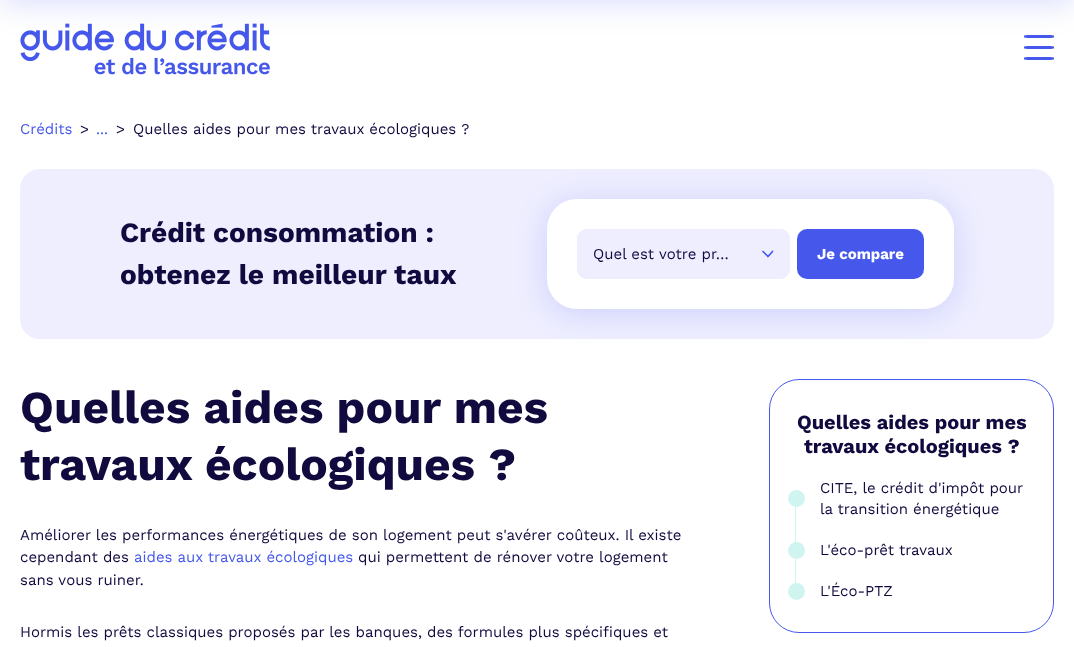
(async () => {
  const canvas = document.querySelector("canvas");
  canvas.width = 1074;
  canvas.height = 647;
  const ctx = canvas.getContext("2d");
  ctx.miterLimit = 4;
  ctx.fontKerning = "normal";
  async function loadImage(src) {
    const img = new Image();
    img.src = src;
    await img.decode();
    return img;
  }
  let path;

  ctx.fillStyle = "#ffffff";
  ctx.fillRect(0, 0, 1074, 647);
  ctx.drawImage(await loadImage("img/1.png"), 20, 23, 250, 52);
  ctx.fillStyle = "#4558eb";
  path = new Path2D("M1030 35H1048C1051.5 35 1054 35.5 1054 35.5V37.5C1054 37.5 1051.5 38 1048 38H1030C1026.5 38 1024 37.5 1024 37.5V35.5C1024 35.5 1026.5 35 1030 35ZM1030 46H1048C1051.5 46 1054 46.5 1054 46.5V48.5C1054 48.5 1051.5 49 1048 49H1030C1026.5 49 1024 48.5 1024 48.5V46.5C1024 46.5 1026.5 46 1030 46ZM1030 57H1048C1051.5 57 1054 57.5 1054 57.5V59.5C1054 59.5 1051.5 60 1048 60H1030C1026.5 60 1024 59.5 1024 59.5V57.5C1024 57.5 1026.5 57 1030 57Z");
  ctx.fill(path);
  ctx.fillStyle = "rgba(69, 88, 235, 0.2)";
  ctx.filter = "blur(15px)";
  ctx.beginPath();
  ctx.rect(0, -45, 1074, 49);
  ctx.fill();
  ctx.filter = "none";
  ctx.fillStyle = "#eeeeff";
  ctx.beginPath();
  ctx.roundRect(20, 169, 1034, 170, 20);
  ctx.fill();
  ctx.fillStyle = "rgba(69, 88, 235, 0.2)";
  ctx.filter = "blur(15px)";
  ctx.beginPath();
  ctx.roundRect(547, 203, 407, 110, 30);
  ctx.fill();
  ctx.filter = "none";
  ctx.fillStyle = "#ffffff";
  ctx.beginPath();
  ctx.roundRect(547, 199, 407, 110, 30);
  ctx.fill();
  ctx.fillStyle = "#eeeeff";
  ctx.beginPath();
  ctx.roundRect(577, 229, 213, 50, 10);
  ctx.fill();
  path = new Path2D("M772.5 251.5L768 256.5L763 251.5");
  ctx.strokeStyle = "#4558eb";
  ctx.lineWidth = 1.7;
  ctx.lineCap = "round";
  ctx.lineJoin = "round";
  ctx.stroke(path);
  ctx.beginPath();
  ctx.roundRect(577.5, 229.5, 212, 49, 9.5);
  ctx.strokeStyle = "#eeeeff";
  ctx.lineWidth = 1;
  ctx.lineJoin = "miter";
  ctx.stroke();
  ctx.fillStyle = "#4558eb";
  ctx.beginPath();
  ctx.roundRect(797, 229, 127, 50, 10);
  ctx.fill();
  ctx.beginPath();
  ctx.roundRect(769.5, 379.5, 284, 253, 29.5);
  ctx.strokeStyle = "#4558eb";
  ctx.stroke();
  ctx.fillStyle = "#d0f5f0";
  ctx.fillRect(795, 499, 1, 44);
  ctx.beginPath();
  ctx.arc(796.5, 498.5, 8.5, 0, Math.PI * 2);
  ctx.fill();
  ctx.fillRect(795, 550, 1, 34);
  ctx.beginPath();
  ctx.arc(796.5, 550.5, 8.5, 0, Math.PI * 2);
  ctx.fill();
  ctx.beginPath();
  ctx.arc(796.5, 591.5, 8.5, 0, Math.PI * 2);
  ctx.fill();
  ctx.font = "15px Work Sans";
  ctx.fillStyle = "#4558eb";
  ctx.fillText("Crédits", 20, 134);
  ctx.fillStyle = "#100a3f";
  ctx.fillText(">", 80, 134);
  ctx.fillStyle = "#4558eb";
  ctx.fillText("...", 96, 134);
  ctx.fillStyle = "#100a3f";
  ctx.fillText(">", 116, 134);
  ctx.fillText("Quelles aides pour mes travaux écologiques ?", 133, 134);
  ctx.font = "bold 28px Work Sans";
  ctx.fillText("Crédit consommation :", 120, 242);
  ctx.fillText("obtenez le meilleur taux", 120, 284);
  ctx.font = "15px Work Sans";
  ctx.fillText("Quel est votre pr…", 593, 259);
  ctx.font = "bold 15px Work Sans";
  ctx.fillStyle = "#ffffff";
  ctx.fillText("Je compare", 817, 259);
  ctx.font = "bold 46px Work Sans";
  ctx.fillStyle = "#100a3f";
  ctx.fillText("Quelles aides pour mes", 20, 423);
  ctx.fillText("travaux écologiques ?", 20, 480);
  ctx.font = "15px Work Sans";
  ctx.fillText("Améliorer les performances énergétiques de son logement peut s'avérer coûteux. Il existe", 20, 540);
  ctx.fillText("cependant des", 20, 562);
  ctx.fillStyle = "#4558eb";
  ctx.fillText("aides aux travaux écologiques", 134, 562);
  ctx.fillStyle = "#100a3f";
  for (const [text, x, y] of [
    ["qui permettent de rénover votre logement", 358, 562],
    ["sans vous ruiner.", 20, 585],
    ["Hormis les prêts classiques proposés par les banques, des formules plus spécifiques et", 20, 637],
  ]) {
    ctx.fillText(text, x, y);
  }
  ctx.font = "bold 20px Work Sans";
  ctx.fillText("Quelles aides pour mes", 797, 429);
  ctx.fillText("travaux écologiques ?", 804, 453);
  ctx.font = "15px Work Sans";
  for (const [text, x, y] of [
    ["CITE, le crédit d'impôt pour", 820, 493],
    ["la transition énergétique", 820, 514],
    ["L'éco-prêt travaux", 820, 555],
    ["L'Éco-PTZ", 820, 596],
  ]) {
    ctx.fillText(text, x, y);
  }
})();
